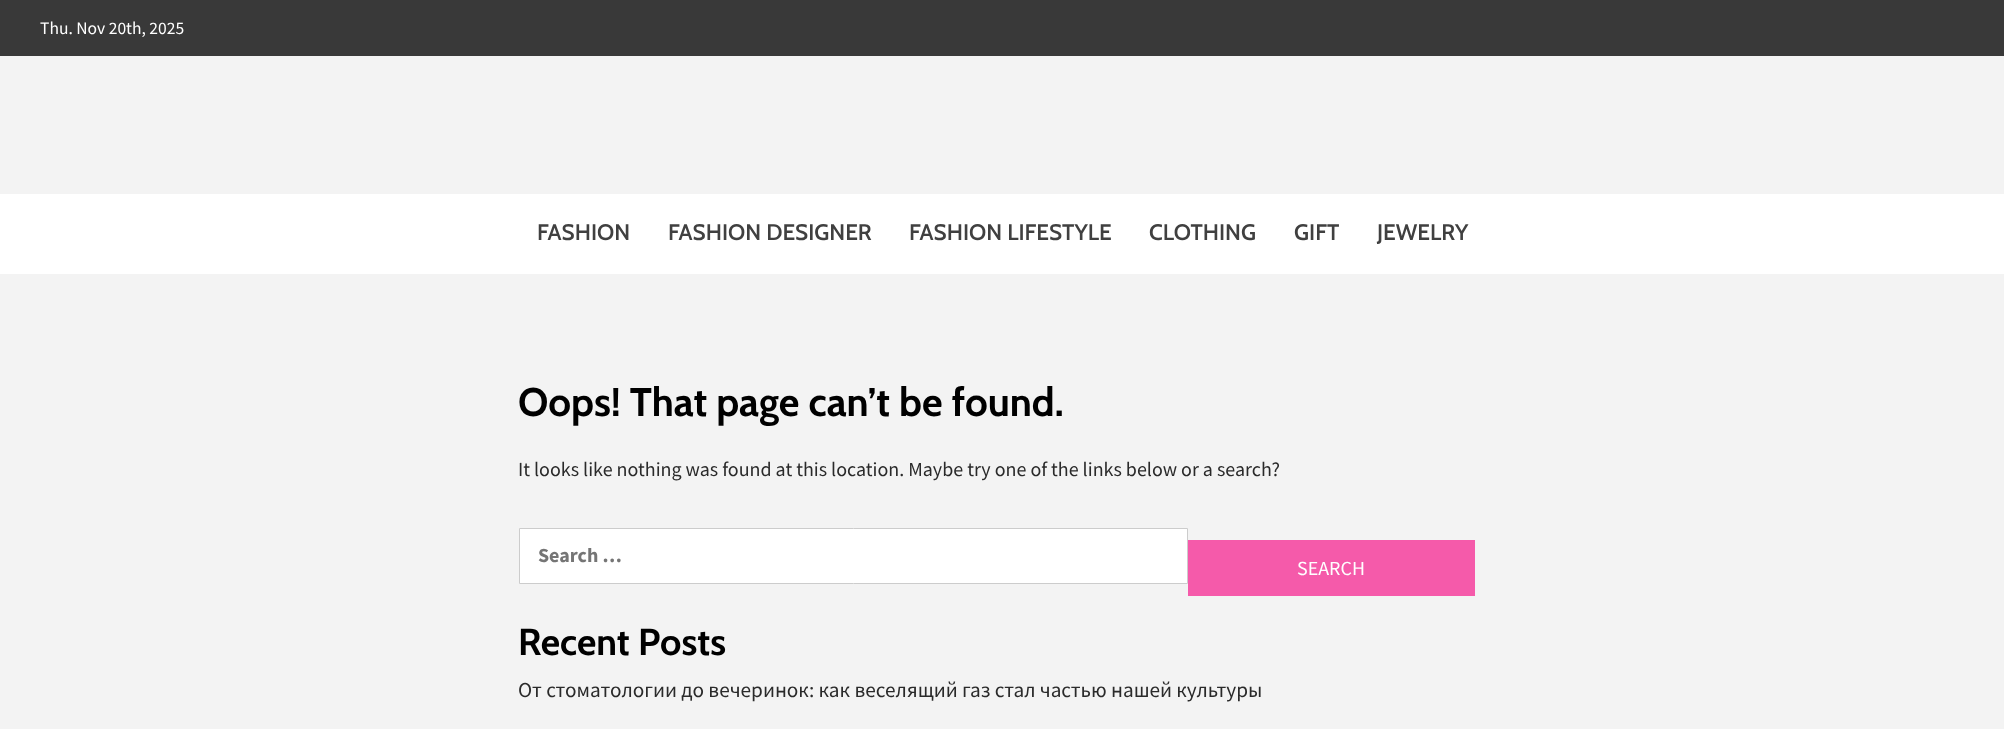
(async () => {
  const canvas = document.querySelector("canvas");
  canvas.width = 2004;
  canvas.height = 729;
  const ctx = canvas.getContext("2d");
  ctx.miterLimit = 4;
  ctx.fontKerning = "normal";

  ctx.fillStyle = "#f3f3f3";
  ctx.fillRect(0, 0, 2004, 729);
  ctx.fillStyle = "#393939";
  ctx.fillRect(0, 0, 2004, 56);
  ctx.fillStyle = "#ffffff";
  ctx.fillRect(0, 194, 2004, 80);
  ctx.beginPath();
  ctx.rect(519.5, 528.5, 668, 55);
  ctx.fill();
  ctx.strokeStyle = "#cccccc";
  ctx.stroke();
  ctx.fillStyle = "#f55aaa";
  ctx.fillRect(1188, 540, 287, 56);
  ctx.font = "17.5px Source Sans Pro";
  ctx.fillStyle = "#ffffff";
  ctx.fillText("Thu. Nov 20th, 2025", 40, 34);
  ctx.font = "600 22.5px Cabin";
  ctx.fillStyle = "#404040";
  for (const [text, x, y] of [
    ["FASHION", 537, 240],
    ["FASHION DESIGNER", 668, 240],
    ["FASHION LIFESTYLE", 909, 240],
    ["CLOTHING", 1149, 240],
    ["GIFT", 1294, 240],
    ["JEWELRY", 1377, 240],
  ]) {
    ctx.fillText(text, x, y);
  }
  ctx.font = "bold 40px Cabin";
  ctx.fillStyle = "#000000";
  ctx.fillText("Oops! That page can’t be found.", 518, 416);
  ctx.font = "20px Source Sans Pro";
  ctx.fillStyle = "#2a2a2a";
  ctx.fillText("It looks like nothing was found at this location. Maybe try one of the links below or a search?", 518, 476);
  ctx.font = "bold 20px Source Sans Pro";
  ctx.fillStyle = "#757575";
  ctx.fillText("Search …", 538, 562);
  ctx.font = "20px Source Sans Pro";
  ctx.fillStyle = "#ffffff";
  ctx.fillText("SEARCH", 1297, 575);
  ctx.font = "bold 37.5px Cabin";
  ctx.fillStyle = "#000000";
  ctx.fillText("Recent Posts", 518, 655);
  ctx.font = "21.25px Source Sans Pro";
  ctx.fillStyle = "#2a2a2a";
  ctx.fillText("От стоматологии до вечеринок: как веселящий газ стал частью нашей культуры", 518, 697);
})();
